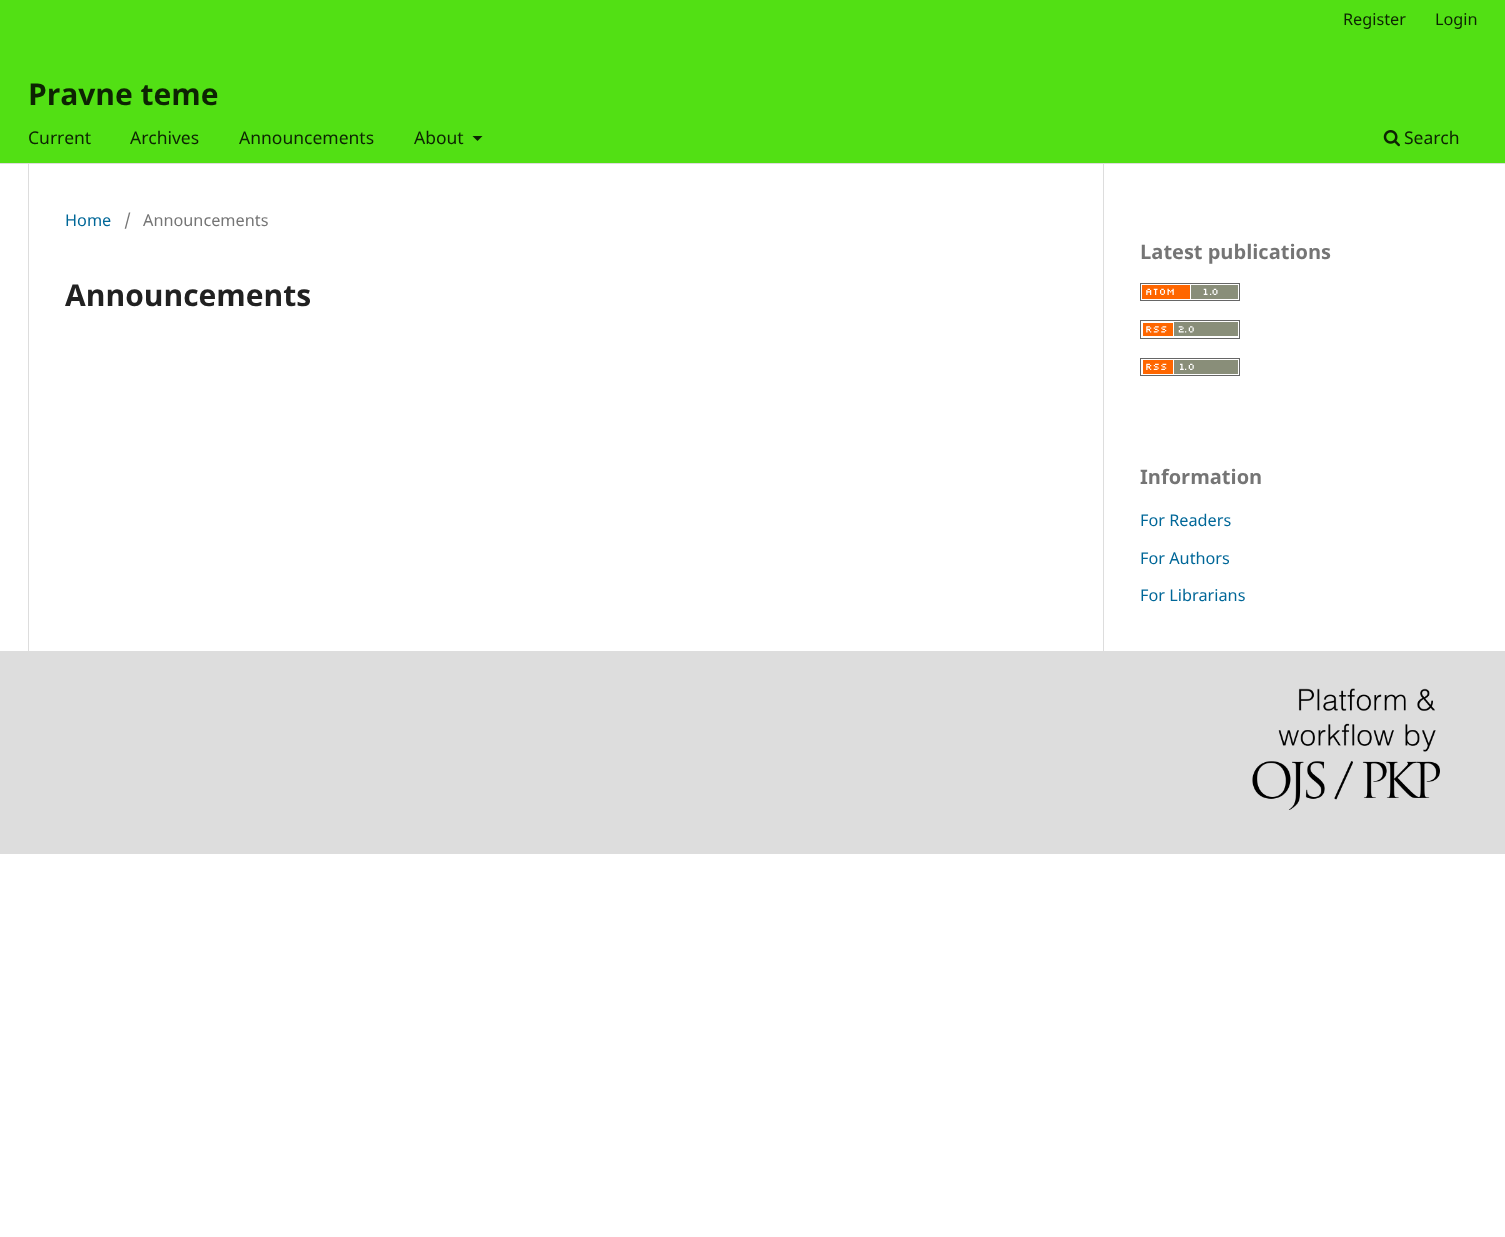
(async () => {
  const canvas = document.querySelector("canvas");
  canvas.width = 1505;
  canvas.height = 1237;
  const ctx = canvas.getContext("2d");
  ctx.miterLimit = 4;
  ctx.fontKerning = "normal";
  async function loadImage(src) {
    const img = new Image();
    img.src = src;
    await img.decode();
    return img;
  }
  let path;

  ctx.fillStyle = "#ffffff";
  ctx.fillRect(0, 0, 1505, 1237);
  ctx.fillStyle = "#52e014";
  ctx.fillRect(0, 0, 1505, 163);
  ctx.fillStyle = "#dddddd";
  ctx.fillRect(0, 163, 1505, 1);
  ctx.fillStyle = "#0d2403";
  path = new Path2D("M472.5 136H482.5L477.5 141Z");
  ctx.fill(path);
  ctx.drawImage(await loadImage("img/1.png"), 1383, 130, 17, 17);
  ctx.fillStyle = "#dddddd";
  ctx.fillRect(28, 164, 1, 487);
  ctx.fillRect(1103, 164, 1, 487);
  ctx.drawImage(await loadImage("img/2.png"), 1140, 283, 100, 18);
  ctx.drawImage(await loadImage("img/3.png"), 1140, 320, 100, 19);
  ctx.drawImage(await loadImage("img/4.png"), 1140, 358, 100, 18);
  ctx.fillRect(0, 651, 1505, 203);
  ctx.drawImage(await loadImage("img/5.png"), 1252, 688, 188, 122);
  ctx.font = "16.25px Noto Sans";
  ctx.fillStyle = "#0d2403";
  ctx.fillText("Register", 1343, 25);
  ctx.fillText("Login", 1435, 25);
  ctx.font = "17.5px Noto Sans";
  for (const [text, x, y] of [
    ["Current", 28, 144],
    ["Archives", 130, 144],
    ["Announcements", 239, 144],
    ["About", 414, 144],
    ["Search", 1404, 144],
  ]) {
    ctx.fillText(text, x, y);
  }
  ctx.font = "bold 30px Noto Sans";
  ctx.fillText("Pravne teme", 28, 105);
  ctx.font = "16.25px Noto Sans";
  ctx.fillStyle = "#006798";
  ctx.fillText("Home", 65, 226);
  ctx.fillStyle = "#757575";
  ctx.fillText("/", 124, 226);
  ctx.fillText("Announcements", 143, 226);
  ctx.font = "bold 30px Noto Sans";
  ctx.fillStyle = "#212121";
  ctx.fillText("Announcements", 65, 306);
  ctx.font = "bold 20px Noto Sans";
  ctx.fillStyle = "#757575";
  ctx.fillText("Latest publications", 1140, 259);
  ctx.fillText("Information", 1140, 484);
  ctx.font = "16.25px Noto Sans";
  ctx.fillStyle = "#006798";
  for (const [text, x, y] of [
    ["For Readers", 1140, 526],
    ["For Authors", 1140, 564],
    ["For Librarians", 1140, 601],
  ]) {
    ctx.fillText(text, x, y);
  }
})();
